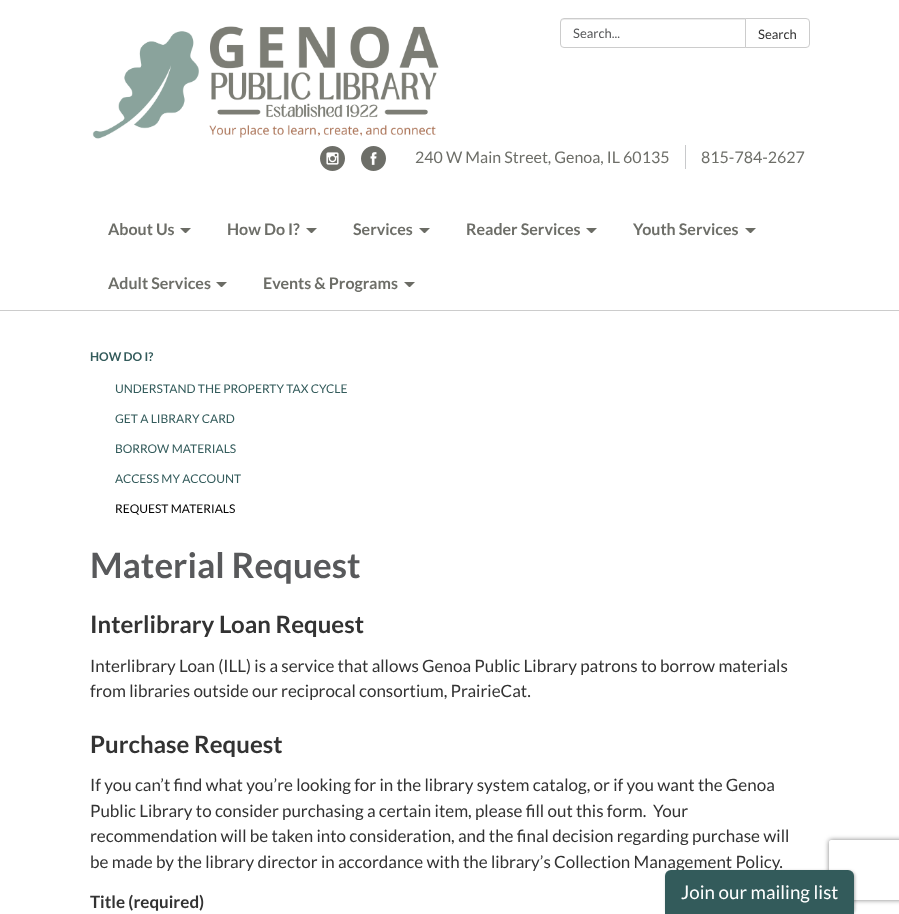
(async () => {
  const canvas = document.querySelector("canvas");
  canvas.width = 899;
  canvas.height = 914;
  const ctx = canvas.getContext("2d");
  ctx.miterLimit = 4;
  ctx.fontKerning = "normal";
  async function loadImage(src) {
    const img = new Image();
    img.src = src;
    await img.decode();
    return img;
  }
  let path;

  ctx.fillStyle = "#ffffff";
  ctx.fillRect(0, 0, 899, 914);
  ctx.drawImage(await loadImage("img/1.png"), 92, 26, 347, 113);
  ctx.fillStyle = "#ececec";
  path = new Path2D("M564 20H745V19H563C561 20 561 21 561 23C561 21 562 20 564 20Z");
  ctx.fill(path);
  ctx.beginPath();
  ctx.roundRect(560.5, 18.5, 185, 29, [3.5, 0, 0, 3.5]);
  ctx.strokeStyle = "#cccccc";
  ctx.stroke();
  ctx.fillStyle = "#ffffff";
  ctx.beginPath();
  ctx.roundRect(745.5, 18.5, 64, 29, [0, 3.5, 3.5, 0]);
  ctx.fill();
  ctx.stroke();
  ctx.drawImage(await loadImage("img/2.png"), 320, 146, 25, 25);
  ctx.drawImage(await loadImage("img/3.png"), 361, 146, 25, 25);
  ctx.fillStyle = "#c8c9cb";
  ctx.fillRect(685, 145, 1, 24);
  ctx.fillStyle = "#6b6c65";
  path = new Path2D("M180 228H191L186 233H185Z");
  ctx.fill(path);
  path = new Path2D("M306 228H317L312 233H311Z");
  ctx.fill(path);
  path = new Path2D("M419 228H430L425 233H424Z");
  ctx.fill(path);
  path = new Path2D("M586 228H597L592 233H591Z");
  ctx.fill(path);
  path = new Path2D("M745 228H756L751 233H750Z");
  ctx.fill(path);
  path = new Path2D("M216 282H227L222 287H221Z");
  ctx.fill(path);
  path = new Path2D("M404 282H415L410 287H409Z");
  ctx.fill(path);
  ctx.fillStyle = "#cccccc";
  ctx.fillRect(0, 310, 899, 1);
  ctx.save();
  path = new Path2D("M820 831H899V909H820ZM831 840H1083C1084 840 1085 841 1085 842V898C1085 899 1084 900 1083 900H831C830 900 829 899 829 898V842C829 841 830 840 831 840Z");
  ctx.clip(path, "evenodd");
  ctx.fillStyle = "#808080";
  ctx.filter = "blur(2.5px)";
  ctx.beginPath();
  ctx.roundRect(829, 840, 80, 60, 2);
  ctx.fill();
  ctx.filter = "none";
  ctx.restore();
  ctx.fillStyle = "rgba(0, 0, 0, 0.3)";
  ctx.filter = "blur(1.5px)";
  ctx.beginPath();
  ctx.roundRect(666, 871, 189, 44, 6);
  ctx.fill();
  ctx.filter = "none";
  ctx.font = "13px Lato";
  ctx.fillStyle = "#58595b";
  ctx.fillText("Search...", 573, 38);
  ctx.fillStyle = "#333333";
  ctx.fillText("Search", 758, 39);
  ctx.font = "16px Lato";
  ctx.fillStyle = "#6d6e68";
  ctx.fillText("240 W Main Street, Genoa, IL 60135", 415, 163);
  ctx.fillText("815-784-2627", 701, 163);
  ctx.font = "bold 16px Lato";
  for (const [text, x, y] of [
    ["About Us", 108, 235],
    ["How Do I?", 227, 235],
    ["Services", 353, 235],
    ["Reader Services", 466, 235],
    ["Youth Services", 633, 235],
    ["Adult Services", 108, 289],
    ["Events & Programs", 263, 289],
  ]) {
    ctx.fillText(text, x, y);
  }
  ctx.font = "bold 12px Lato";
  ctx.fillStyle = "#335b5b";
  ctx.fillText("HOW DO I?", 90, 361);
  ctx.font = "12px Lato";
  for (const [text, x, y] of [
    ["UNDERSTAND THE PROPERTY TAX CYCLE", 115, 393],
    ["GET A LIBRARY CARD", 115, 423],
    ["BORROW MATERIALS", 115, 453],
    ["ACCESS MY ACCOUNT", 115, 483],
  ]) {
    ctx.fillText(text, x, y);
  }
  ctx.fillStyle = "#000000";
  ctx.fillText("REQUEST MATERIALS", 115, 513);
  ctx.font = "bold 35px Lato";
  ctx.fillStyle = "#58595b";
  ctx.fillText("Material Request", 90, 578);
  ctx.font = "bold 24px Lato";
  ctx.fillStyle = "#333333";
  ctx.fillText("Interlibrary Loan Request", 90, 633);
  ctx.font = "17px Lato";
  ctx.fillText("Interlibrary Loan (ILL) is a service that allows Genoa Public Library patrons to borrow materials", 90, 672);
  ctx.fillText("from libraries outside our reciprocal consortium, PrairieCat.", 90, 697);
  ctx.font = "bold 24px Lato";
  ctx.fillText("Purchase Request", 90, 753);
  ctx.font = "17px Lato";
  for (const [text, x, y] of [
    ["If you can’t find what you’re looking for in the library system catalog, or if you want the Genoa", 90, 791],
    ["Public Library to consider purchasing a certain item, please fill out this form.  Your", 90, 817],
    ["recommendation will be taken into consideration, and the final decision regarding purchase will", 90, 842],
    ["be made by the library director in accordance with the library’s Collection Management Policy.", 90, 868],
  ]) {
    ctx.fillText(text, x, y);
  }
  ctx.font = "bold 17px Lato";
  ctx.fillText("Title (required)", 90, 908);
  ctx.fillStyle = "#335b5b";
  ctx.beginPath();
  ctx.roundRect(665, 870, 189, 44, [6, 6, 0, 0]);
  ctx.fill();
  ctx.font = "18.75px Lato";
  ctx.fillStyle = "#ffffff";
  ctx.fillText("Join our mailing list", 681, 899);
})();
